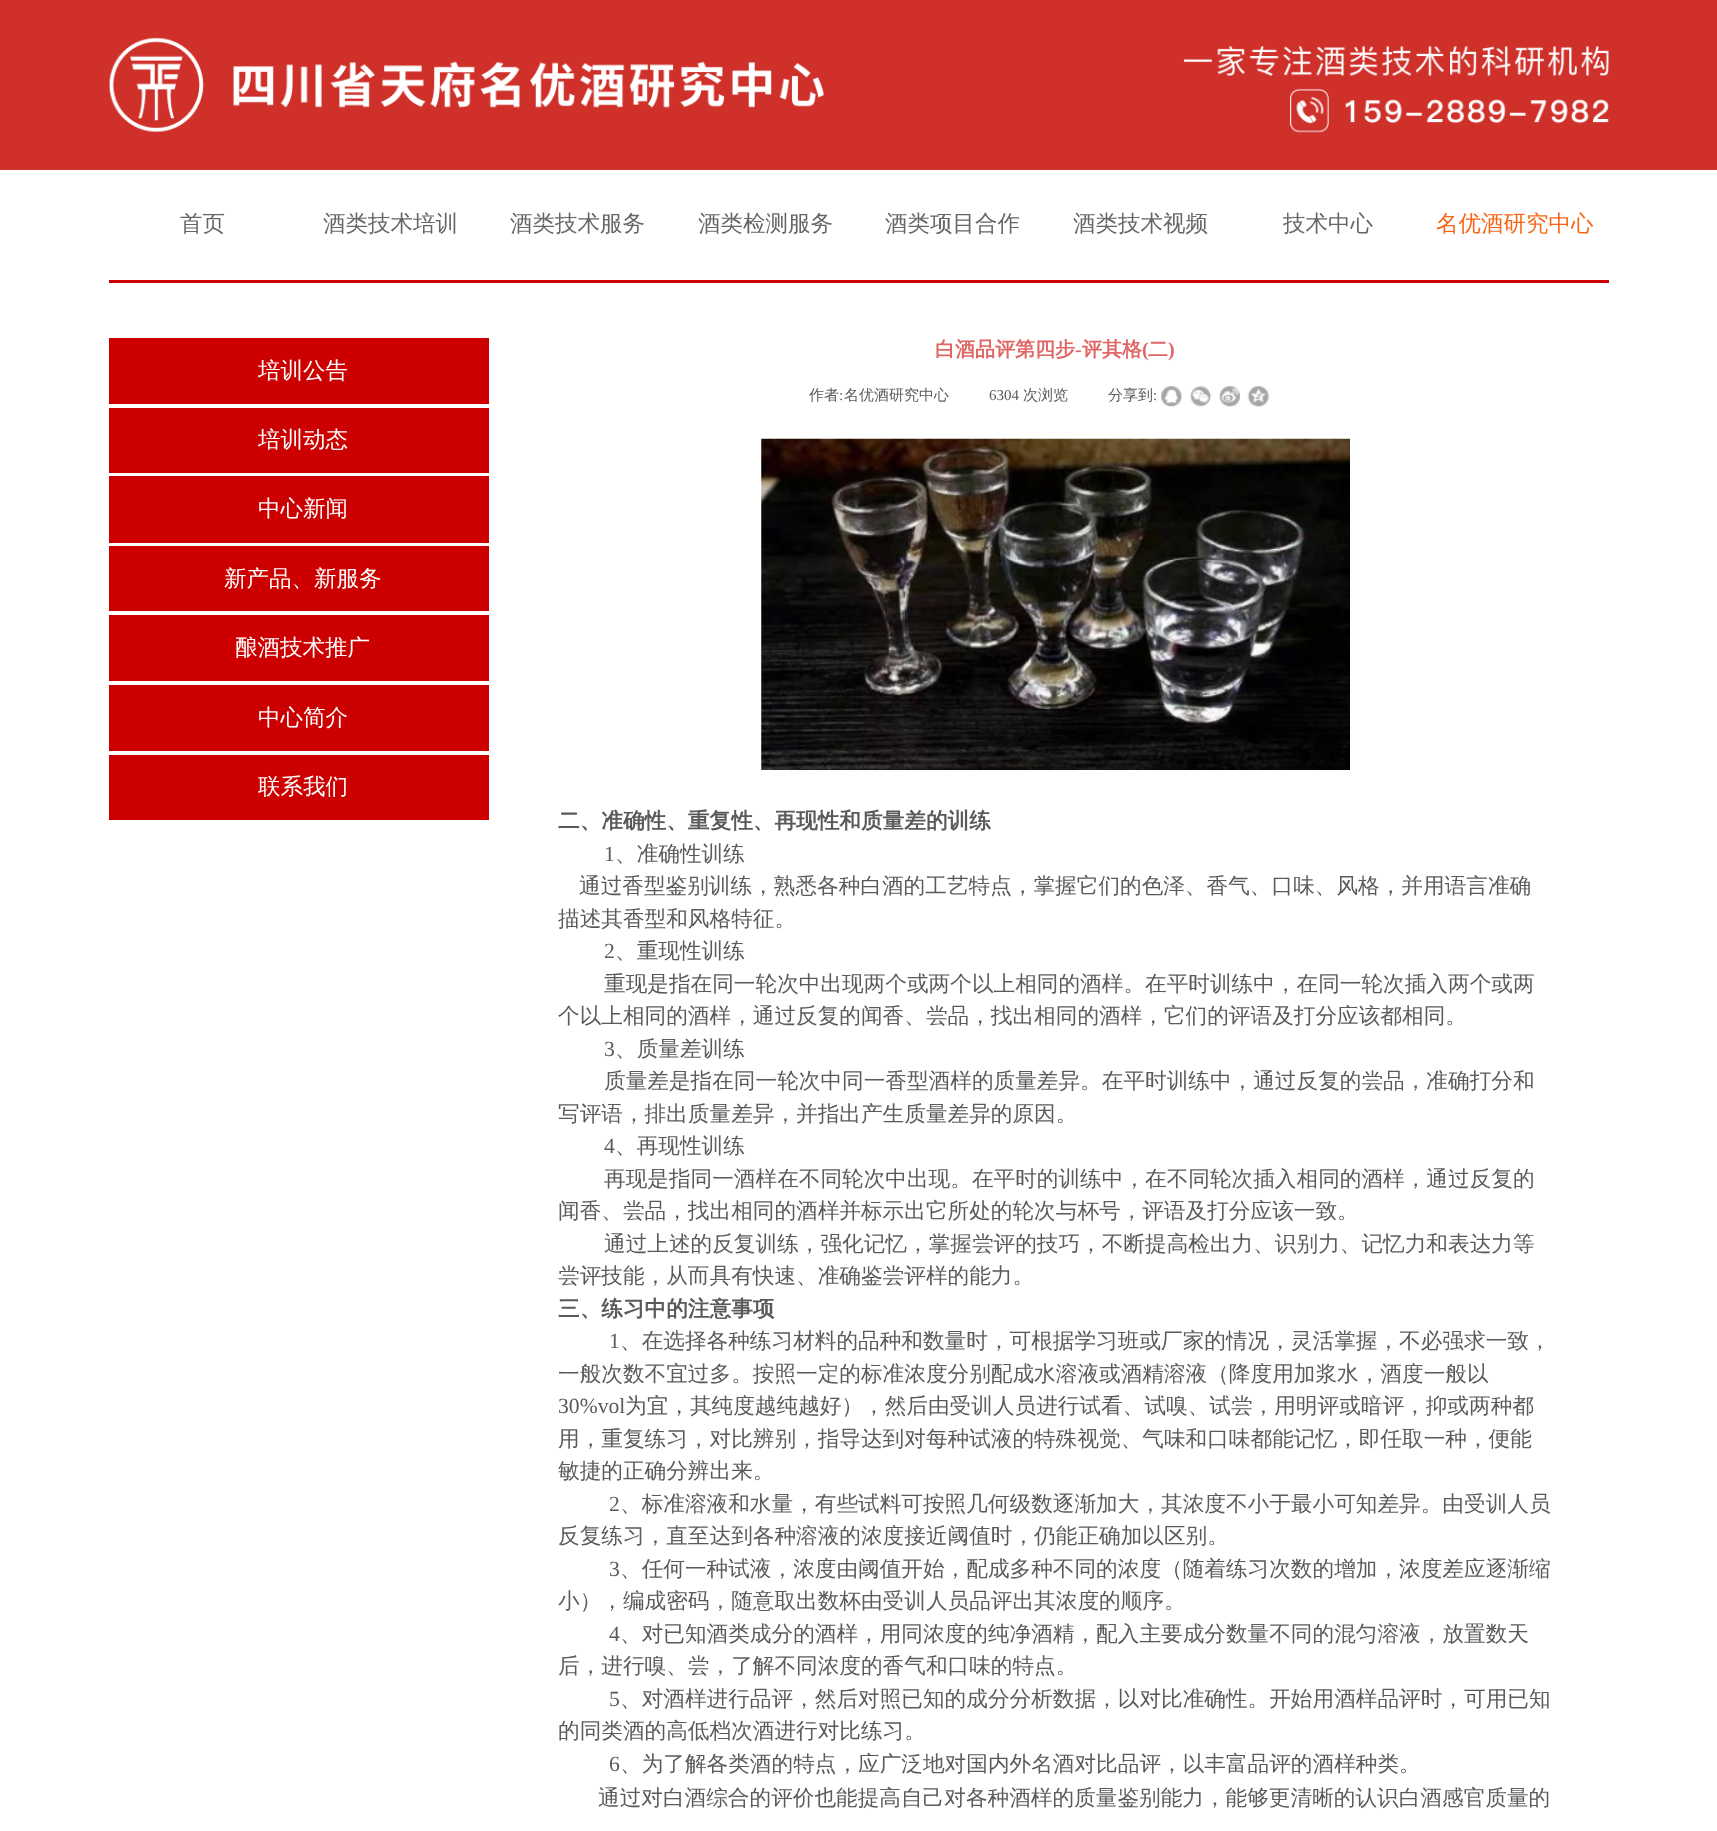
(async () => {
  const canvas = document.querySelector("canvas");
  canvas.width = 1717;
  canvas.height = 1831;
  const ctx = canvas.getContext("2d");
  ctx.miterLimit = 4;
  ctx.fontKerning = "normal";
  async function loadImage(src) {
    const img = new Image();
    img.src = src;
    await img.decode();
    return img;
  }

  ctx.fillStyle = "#ffffff";
  ctx.fillRect(0, 0, 1717, 1831);
  ctx.fillStyle = "#cf302a";
  ctx.fillRect(0, 0, 1717, 170);
  ctx.drawImage(await loadImage("img/1.png"), 109, 37, 715, 96);
  ctx.drawImage(await loadImage("img/2.png"), 1183, 46, 426, 31);
  ctx.drawImage(await loadImage("img/3.png"), 1290, 88, 319, 45);
  for (const [x, y, w, h, color] of [
    [109, 280, 1500, 3, "#cc0000"],
    [109, 338, 380, 66, "#cc0000"],
    [109, 408, 380, 65, "#cc0000"],
    [109, 476, 380, 67, "#cc0000"],
    [109, 546, 380, 65, "#cc0000"],
    [109, 615, 380, 66, "#cc0000"],
    [109, 685, 380, 66, "#cc0000"],
    [109, 755, 380, 65, "#cc0000"],
  ]) {
    ctx.fillStyle = color;
    ctx.fillRect(x, y, w, h);
  }
  ctx.drawImage(await loadImage("img/4.png"), 1161, 386, 21, 21);
  ctx.drawImage(await loadImage("img/5.png"), 1190, 386, 22, 21);
  ctx.drawImage(await loadImage("img/6.png"), 1219, 386, 21, 21);
  ctx.drawImage(await loadImage("img/7.png"), 1247, 386, 22, 21);
  ctx.drawImage(await loadImage("img/8.png"), 761, 438, 589, 332);
  ctx.font = "500 22.5px WenQuanYi Zen Hei";
  ctx.fillStyle = "#666666";
  for (const [text, x, y] of [
    ["首页", 180, 231],
    ["酒类技术培训", 323, 231],
    ["酒类技术服务", 510, 231],
    ["酒类检测服务", 698, 231],
    ["酒类项目合作", 885, 231],
    ["酒类技术视频", 1073, 231],
    ["技术中心", 1283, 231],
  ]) {
    ctx.fillText(text, x, y);
  }
  ctx.fillStyle = "#f76616";
  ctx.fillText("名优酒研究中心", 1436, 231);
  ctx.fillStyle = "#ffffff";
  for (const [text, x, y] of [
    ["培训公告", 258, 378],
    ["培训动态", 258, 447],
    ["中心新闻", 258, 516],
    ["新产品、新服务", 224, 586],
    ["酿酒技术推广", 235, 655],
    ["中心简介", 258, 725],
    ["联系我们", 258, 794],
  ]) {
    ctx.fillText(text, x, y);
  }
  ctx.font = "bold 20px WenQuanYi Zen Hei";
  ctx.fillStyle = "#e06666";
  ctx.fillText("白酒品评第四步", 935, 356);
  ctx.font = "bold 20px Liberation Serif";
  ctx.fillText("-", 1075, 356);
  ctx.font = "bold 20px WenQuanYi Zen Hei";
  ctx.fillText("评其格", 1082, 356);
  ctx.font = "bold 20px Liberation Serif";
  ctx.fillText("(", 1142, 356);
  ctx.font = "bold 20px WenQuanYi Zen Hei";
  ctx.fillText("二", 1148, 356);
  ctx.font = "bold 20px Liberation Serif";
  ctx.fillText(")", 1168, 356);
  ctx.font = "500 15px WenQuanYi Zen Hei";
  ctx.fillStyle = "#5a5a5a";
  ctx.fillText("作者", 809, 400);
  ctx.font = "15px Liberation Serif";
  ctx.fillText(":", 839, 400);
  ctx.font = "500 15px WenQuanYi Zen Hei";
  ctx.fillText("名优酒研究中心", 844, 400);
  ctx.font = "15px Liberation Serif";
  ctx.fillText("6304", 989, 400);
  ctx.font = "500 15px WenQuanYi Zen Hei";
  ctx.fillText("次浏览", 1023, 400);
  ctx.fillText("分享到", 1108, 400);
  ctx.font = "15px Liberation Serif";
  ctx.fillText(":", 1153, 400);
  ctx.font = "bold 21.65px WenQuanYi Zen Hei";
  ctx.fillText("二、准确性、重复性、再现性和质量差的训练", 558, 828);
  ctx.font = "21.65px Liberation Serif";
  ctx.fillText("1", 604, 861);
  ctx.font = "500 21.65px WenQuanYi Zen Hei";
  for (const [text, x, y] of [
    ["、准确性训练", 615, 861],
    ["通过香型鉴别训练，熟悉各种白酒的工艺特点，掌握它们的色泽、香气、口味、风格，并用语言准确", 579, 893],
    ["描述其香型和风格特征。", 558, 926],
  ]) {
    ctx.fillText(text, x, y);
  }
  ctx.font = "21.65px Liberation Serif";
  ctx.fillText("2", 604, 958);
  ctx.font = "500 21.65px WenQuanYi Zen Hei";
  for (const [text, x, y] of [
    ["、重现性训练", 615, 958],
    ["重现是指在同一轮次中出现两个或两个以上相同的酒样。在平时训练中，在同一轮次插入两个或两", 604, 991],
    ["个以上相同的酒样，通过反复的闻香、尝品，找出相同的酒样，它们的评语及打分应该都相同。", 558, 1023],
  ]) {
    ctx.fillText(text, x, y);
  }
  ctx.font = "21.65px Liberation Serif";
  ctx.fillText("3", 604, 1056);
  ctx.font = "500 21.65px WenQuanYi Zen Hei";
  for (const [text, x, y] of [
    ["、质量差训练", 615, 1056],
    ["质量差是指在同一轮次中同一香型酒样的质量差异。在平时训练中，通过反复的尝品，准确打分和", 604, 1088],
    ["写评语，排出质量差异，并指出产生质量差异的原因。", 558, 1121],
  ]) {
    ctx.fillText(text, x, y);
  }
  ctx.font = "21.65px Liberation Serif";
  ctx.fillText("4", 604, 1153);
  ctx.font = "500 21.65px WenQuanYi Zen Hei";
  for (const [text, x, y] of [
    ["、再现性训练", 615, 1153],
    ["再现是指同一酒样在不同轮次中出现。在平时的训练中，在不同轮次插入相同的酒样，通过反复的", 604, 1186],
    ["闻香、尝品，找出相同的酒样并标示出它所处的轮次与杯号，评语及打分应该一致。", 558, 1218],
    ["通过上述的反复训练，强化记忆，掌握尝评的技巧，不断提高检出力、识别力、记忆力和表达力等", 604, 1251],
    ["尝评技能，从而具有快速、准确鉴尝评样的能力。", 558, 1283],
  ]) {
    ctx.fillText(text, x, y);
  }
  ctx.font = "bold 21.65px WenQuanYi Zen Hei";
  ctx.fillText("三、练习中的注意事项", 558, 1316);
  ctx.font = "21.65px Liberation Serif";
  ctx.fillText("1", 609, 1348);
  ctx.font = "500 21.65px WenQuanYi Zen Hei";
  ctx.fillText("、在选择各种练习材料的品种和数量时，可根据学习班或厂家的情况，灵活掌握，不必强求一致，", 620, 1348);
  ctx.fillText("一般次数不宜过多。按照一定的标准浓度分别配成水溶液或酒精溶液（降度用加浆水，酒度一般以", 558, 1381);
  ctx.font = "21.65px Liberation Serif";
  ctx.fillText("30%vol", 558, 1413);
  ctx.font = "500 21.65px WenQuanYi Zen Hei";
  for (const [text, x, y] of [
    ["为宜，其纯度越纯越好），然后由受训人员进行试看、试嗅、试尝，用明评或暗评，抑或两种都", 625, 1413],
    ["用，重复练习，对比辨别，指导达到对每种试液的特殊视觉、气味和口味都能记忆，即任取一种，便能", 558, 1446],
    ["敏捷的正确分辨出来。", 558, 1478],
  ]) {
    ctx.fillText(text, x, y);
  }
  ctx.font = "21.65px Liberation Serif";
  ctx.fillText("2", 609, 1511);
  ctx.font = "500 21.65px WenQuanYi Zen Hei";
  ctx.fillText("、标准溶液和水量，有些试料可按照几何级数逐渐加大，其浓度不小于最小可知差异。由受训人员", 620, 1511);
  ctx.fillText("反复练习，直至达到各种溶液的浓度接近阈值时，仍能正确加以区别。", 558, 1543);
  ctx.font = "21.65px Liberation Serif";
  ctx.fillText("3", 609, 1576);
  ctx.font = "500 21.65px WenQuanYi Zen Hei";
  ctx.fillText("、任何一种试液，浓度由阈值开始，配成多种不同的浓度（随着练习次数的增加，浓度差应逐渐缩", 620, 1576);
  ctx.fillText("小），编成密码，随意取出数杯由受训人员品评出其浓度的顺序。", 558, 1608);
  ctx.font = "21.65px Liberation Serif";
  ctx.fillText("4", 609, 1641);
  ctx.font = "500 21.65px WenQuanYi Zen Hei";
  ctx.fillText("、对已知酒类成分的酒样，用同浓度的纯净酒精，配入主要成分数量不同的混匀溶液，放置数天", 620, 1641);
  ctx.fillText("后，进行嗅、尝，了解不同浓度的香气和口味的特点。", 558, 1673);
  ctx.font = "21.65px Liberation Serif";
  ctx.fillText("5", 609, 1706);
  ctx.font = "500 21.65px WenQuanYi Zen Hei";
  ctx.fillText("、对酒样进行品评，然后对照已知的成分分析数据，以对比准确性。开始用酒样品评时，可用已知", 620, 1706);
  ctx.fillText("的同类酒的高低档次酒进行对比练习。", 558, 1738);
  ctx.font = "21.65px Liberation Serif";
  ctx.fillText("6", 609, 1771);
  ctx.font = "500 21.65px WenQuanYi Zen Hei";
  ctx.fillText("、为了解各类酒的特点，应广泛地对国内外名酒对比品评，以丰富品评的酒样种类。", 620, 1771);
  ctx.fillText("通过对白酒综合的评价也能提高自己对各种酒样的质量鉴别能力，能够更清晰的认识白酒感官质量的", 598, 1805);
})();
